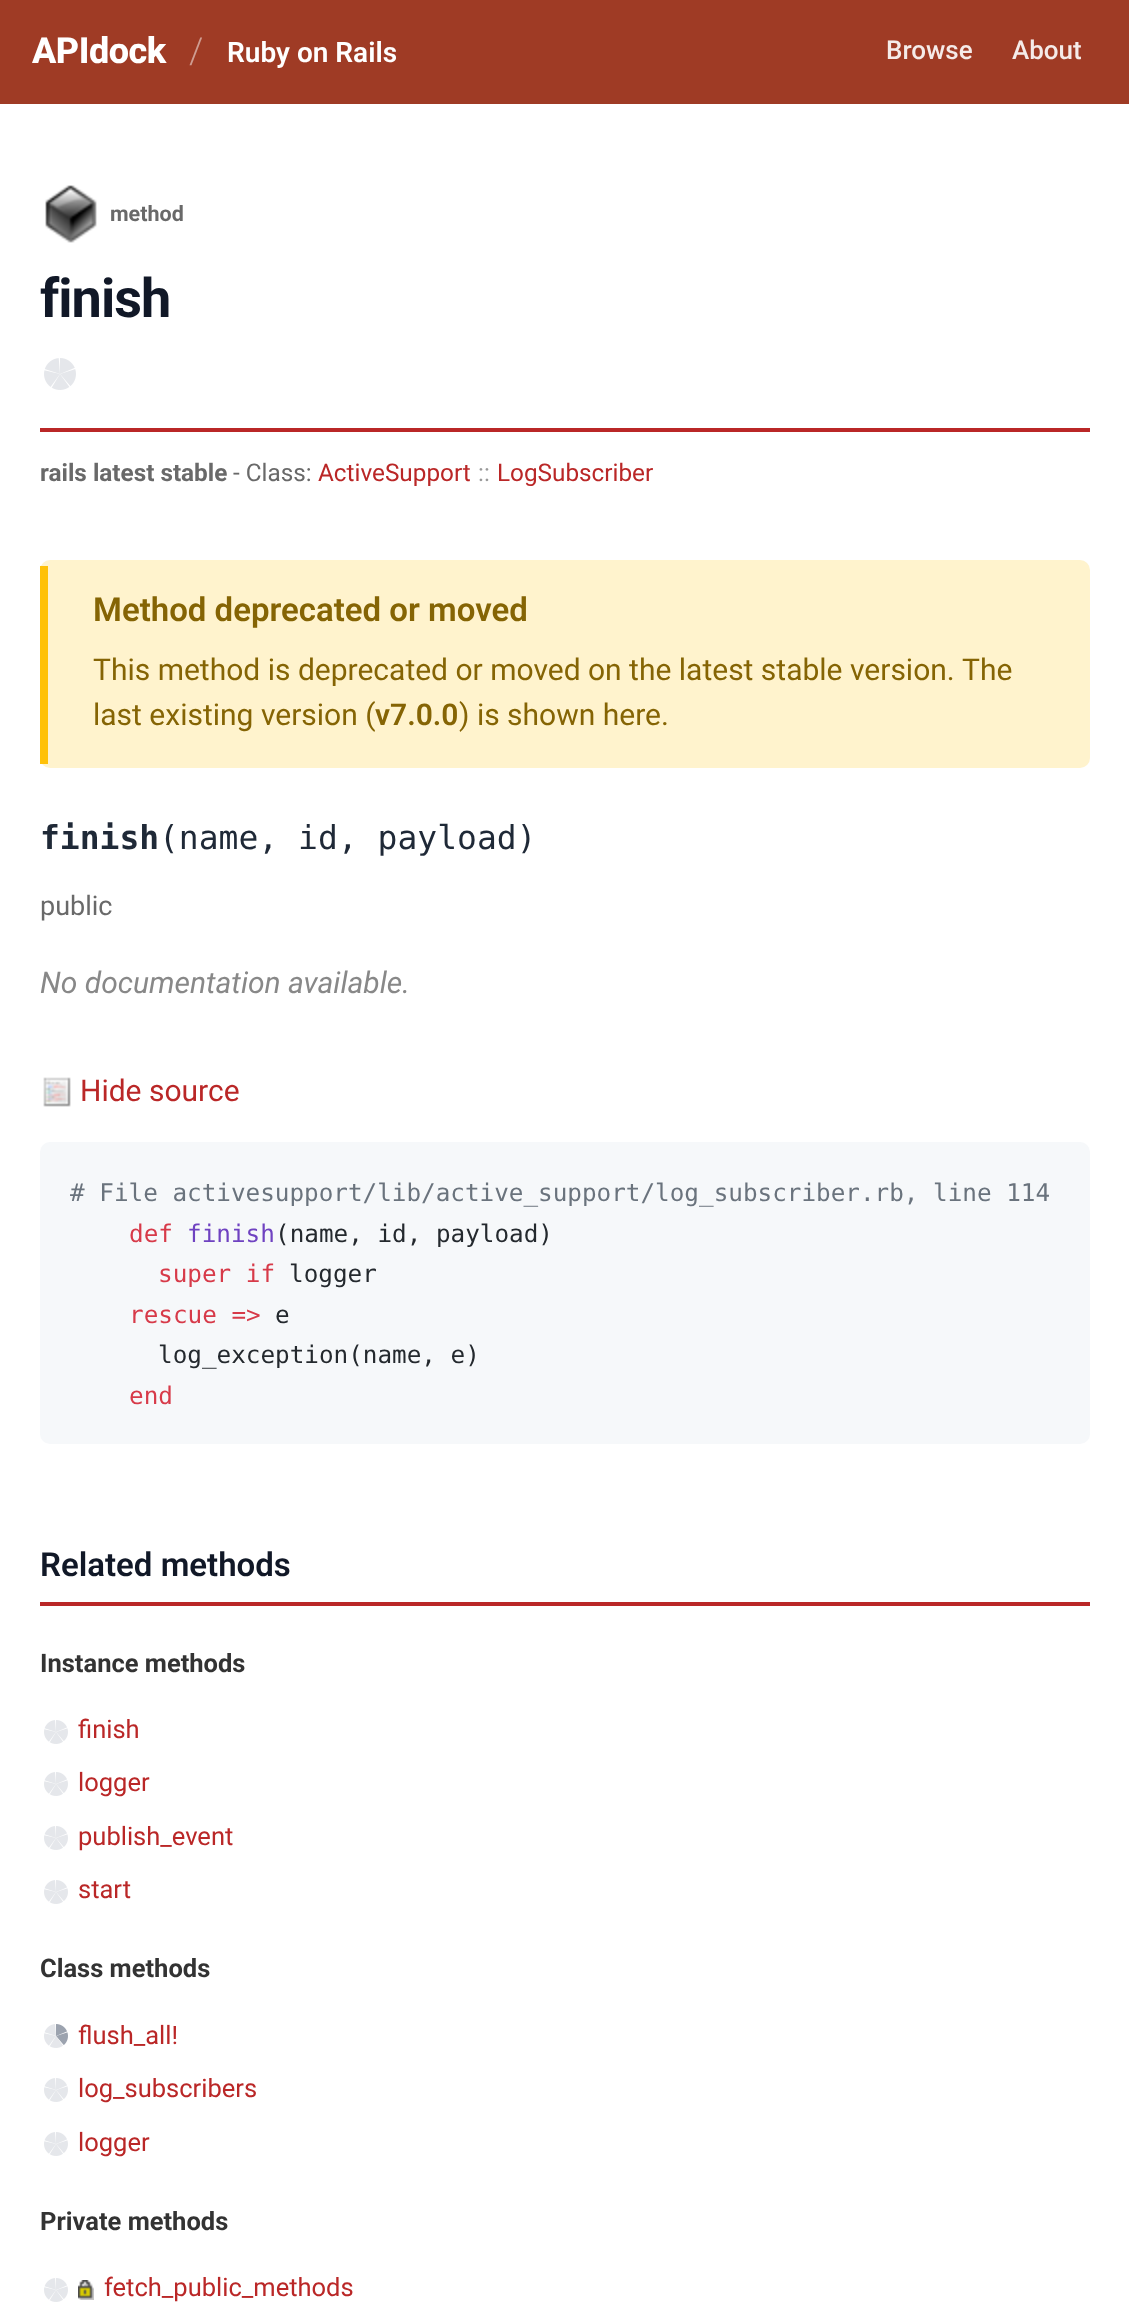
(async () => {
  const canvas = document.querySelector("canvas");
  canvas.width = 1129;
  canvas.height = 2306;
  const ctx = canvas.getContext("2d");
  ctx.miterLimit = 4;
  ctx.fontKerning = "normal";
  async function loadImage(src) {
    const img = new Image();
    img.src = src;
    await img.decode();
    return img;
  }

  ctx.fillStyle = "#ffffff";
  ctx.fillRect(0, 0, 1129, 2306);
  ctx.fillStyle = "#9f3b25";
  ctx.fillRect(0, 0, 1129, 104);
  ctx.fillStyle = "#ba2727";
  ctx.fillRect(40, 428, 1050, 4);
  ctx.drawImage(await loadImage("img/1.png"), 45, 185, 52, 58);
  ctx.drawImage(await loadImage("img/2.png"), 44, 358, 32, 32);
  ctx.fillStyle = "#fff3cd";
  ctx.beginPath();
  ctx.roundRect(40, 560, 1050, 208, 10);
  ctx.fill();
  ctx.fillStyle = "#ffc107";
  ctx.fillRect(40, 566, 8, 198);
  ctx.drawImage(await loadImage("img/3.png"), 43, 1077, 28, 30);
  ctx.fillStyle = "#f6f8fa";
  ctx.beginPath();
  ctx.roundRect(40, 1142, 1050, 302, 10);
  ctx.fill();
  ctx.fillStyle = "#ba2727";
  ctx.fillRect(40, 1602, 1050, 4);
  ctx.drawImage(await loadImage("img/4.png"), 44, 1720, 24, 24);
  ctx.drawImage(await loadImage("img/4.png"), 44, 1772, 24, 24);
  ctx.drawImage(await loadImage("img/4.png"), 44, 1826, 24, 24);
  ctx.drawImage(await loadImage("img/4.png"), 44, 1880, 24, 24);
  ctx.drawImage(await loadImage("img/5.png"), 44, 2024, 24, 24);
  ctx.drawImage(await loadImage("img/4.png"), 44, 2078, 24, 24);
  ctx.drawImage(await loadImage("img/4.png"), 44, 2132, 24, 24);
  ctx.drawImage(await loadImage("img/4.png"), 44, 2278, 24, 24);
  ctx.drawImage(await loadImage("img/6.png"), 78, 2280, 16, 20);
  ctx.letterSpacing = "-0.5px";
  ctx.font = "800 36px Roboto";
  ctx.fillStyle = "#ffffff";
  ctx.fillText("APIdock", 32, 63);
  ctx.letterSpacing = "0px";
  ctx.font = "300 36px Roboto";
  ctx.fillStyle = "#cf9d92";
  ctx.fillText("/", 189, 63);
  ctx.font = "600 28px Roboto";
  ctx.fillStyle = "#ffffff";
  ctx.fillText("Ruby on Rails", 227, 62);
  ctx.font = "500 26px Roboto";
  ctx.fillStyle = "#f5ebe9";
  ctx.fillText("Browse", 886, 59);
  ctx.fillText("About", 1012, 59);
  ctx.font = "bold 21.5px Roboto";
  ctx.fillStyle = "#696969";
  ctx.fillText("method", 110, 221);
  ctx.letterSpacing = "-1px";
  ctx.font = "bold 54px Roboto";
  ctx.fillStyle = "#111827";
  ctx.fillText("finish", 40, 317);
  ctx.letterSpacing = "0px";
  ctx.font = "bold 24.3px Roboto";
  ctx.fillStyle = "#696969";
  ctx.fillText("rails latest stable", 40, 481);
  ctx.font = "24.3px Roboto";
  ctx.fillText("- Class:", 233, 481);
  ctx.fillStyle = "#ba2727";
  ctx.fillText("ActiveSupport", 318, 481);
  ctx.fillStyle = "#999999";
  ctx.fillText("::", 478, 481);
  ctx.fillStyle = "#ba2727";
  ctx.fillText("LogSubscriber", 497, 481);
  ctx.font = "600 33px Roboto";
  ctx.fillStyle = "#856404";
  ctx.fillText("Method deprecated or moved", 93, 621);
  ctx.font = "30px Roboto";
  for (const [text, x, y] of [
    ["This method is deprecated or moved on the latest stable version.", 93, 680],
    ["The", 962, 680],
    ["last existing version (", 93, 725],
  ]) {
    ctx.fillText(text, x, y);
  }
  ctx.font = "600 30px Roboto";
  ctx.fillText("v7.0.0", 375, 725);
  ctx.font = "30px Roboto";
  ctx.fillText(") is shown here.", 459, 725);
  ctx.font = "bold 33px DejaVu Sans Mono";
  ctx.fillStyle = "#1f2937";
  ctx.fillText("finish", 40, 849);
  ctx.font = "33px DejaVu Sans Mono";
  ctx.fillText("(name, id, payload)", 159, 849);
  ctx.font = "27px Roboto";
  ctx.fillStyle = "#696969";
  ctx.fillText("public", 40, 915);
  ctx.font = "italic 30px Roboto";
  ctx.fillStyle = "#888888";
  ctx.fillText("No documentation available.", 40, 993);
  ctx.font = "30px Roboto";
  ctx.fillStyle = "#ba2727";
  ctx.fillText("Hide source", 80, 1101);
  ctx.font = "24.3px DejaVu Sans Mono";
  ctx.fillStyle = "#6a737d";
  ctx.fillText("# File activesupport/lib/active_support/log_subscriber.rb, line 114", 70, 1201);
  ctx.fillStyle = "#d73a49";
  ctx.fillText("def", 129, 1242);
  ctx.fillStyle = "#6f42c1";
  ctx.fillText("finish", 187, 1242);
  ctx.fillStyle = "#24292e";
  ctx.fillText("(name, id, payload)", 275, 1242);
  ctx.fillStyle = "#d73a49";
  ctx.fillText("super if", 158, 1282);
  ctx.fillStyle = "#24292e";
  ctx.fillText("logger", 289, 1282);
  ctx.fillStyle = "#d73a49";
  ctx.fillText("rescue =>", 129, 1323);
  ctx.fillStyle = "#24292e";
  ctx.fillText("e", 275, 1323);
  ctx.fillText("log_exception(name, e)", 158, 1363);
  ctx.fillStyle = "#d73a49";
  ctx.fillText("end", 129, 1404);
  ctx.font = "600 33px Roboto";
  ctx.fillStyle = "#111827";
  ctx.fillText("Related methods", 40, 1576);
  ctx.font = "bold 25.5px Roboto";
  ctx.fillStyle = "#333333";
  ctx.fillText("Instance methods", 40, 1672);
  ctx.font = "25.5px Roboto";
  ctx.fillStyle = "#ba2727";
  for (const [text, x, y] of [
    ["finish", 78, 1738],
    ["logger", 78, 1791],
    ["publish_event", 78, 1845],
    ["start", 78, 1898],
  ]) {
    ctx.fillText(text, x, y);
  }
  ctx.font = "bold 25.5px Roboto";
  ctx.fillStyle = "#333333";
  ctx.fillText("Class methods", 40, 1977);
  ctx.font = "25.5px Roboto";
  ctx.fillStyle = "#ba2727";
  for (const [text, x, y] of [
    ["flush_all!", 78, 2044],
    ["log_subscribers", 78, 2097],
    ["logger", 78, 2151],
  ]) {
    ctx.fillText(text, x, y);
  }
  ctx.font = "bold 25.5px Roboto";
  ctx.fillStyle = "#333333";
  ctx.fillText("Private methods", 40, 2230);
  ctx.font = "25.5px Roboto";
  ctx.fillStyle = "#ba2727";
  ctx.fillText("fetch_public_methods", 104, 2296);
})();
